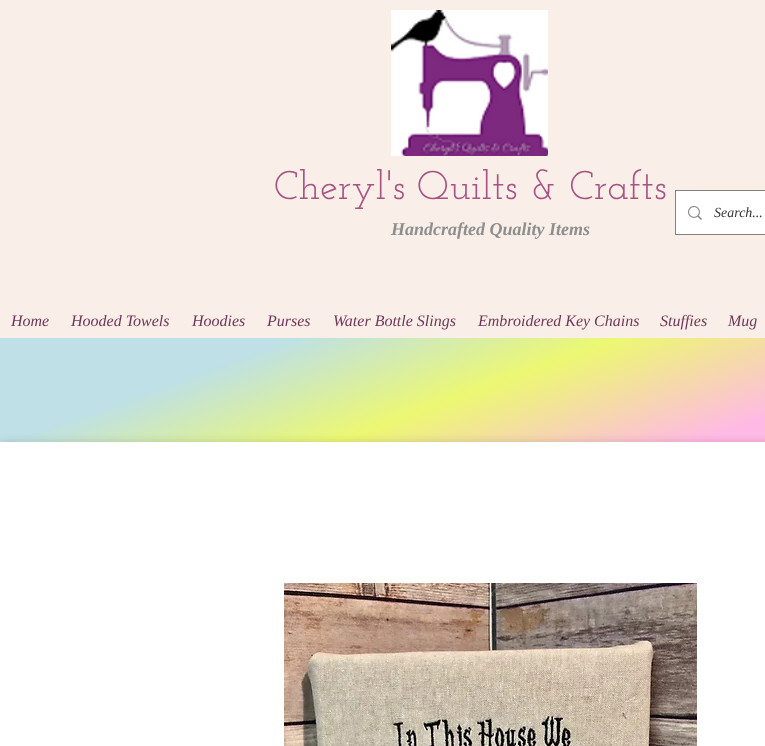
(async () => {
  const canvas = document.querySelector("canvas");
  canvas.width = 765;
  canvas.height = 746;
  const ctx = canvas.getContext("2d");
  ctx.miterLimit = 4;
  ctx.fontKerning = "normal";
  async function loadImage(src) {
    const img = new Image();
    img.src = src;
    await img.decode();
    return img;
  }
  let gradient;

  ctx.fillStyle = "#f9efe8";
  ctx.fillRect(0, 0, 765, 746);
  ctx.drawImage(await loadImage("img/1.png"), 391, 10, 157, 146);
  ctx.strokeStyle = "#84807d";
  ctx.strokeRect(675.5, 190.5, 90, 44);
  ctx.fillStyle = "#ffffff";
  ctx.fillRect(676, 191, 89, 43);
  ctx.drawImage(await loadImage("img/2.png"), 688, 206, 14, 14);
  gradient = ctx.createLinearGradient(564, 593, 416, 187);
  gradient.addColorStop(0.22, "#ffb9e5");
  gradient.addColorStop(0.51, "#ecf872");
  gradient.addColorStop(0.77, "#bee0e6");
  ctx.fillStyle = gradient;
  ctx.fillRect(0, 338, 765, 104);
  ctx.fillStyle = "rgba(30, 30, 30, 0.2)";
  ctx.filter = "blur(5px)";
  ctx.beginPath();
  ctx.rect(1, 443, 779, 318);
  ctx.fill();
  ctx.filter = "none";
  ctx.fillStyle = "#ffffff";
  ctx.fillRect(0, 442, 765, 304);
  ctx.drawImage(await loadImage("img/3.png"), 284, 583, 413, 163);
  ctx.font = "40px Josefin Slab";
  ctx.fillStyle = "#a85284";
  ctx.fillText("Cheryl's Quilts & Crafts", 274, 199);
  ctx.font = "italic 14px Liberation Serif";
  ctx.fillStyle = "#363636";
  ctx.fillText("Search...", 714, 217);
  ctx.font = "italic bold 18px Liberation Serif";
  ctx.fillStyle = "#8e8e8e";
  ctx.fillText("Handcrafted Quality Items", 391, 235);
  ctx.font = "italic 16px Liberation Serif";
  ctx.fillStyle = "#703658";
  for (const [text, x, y] of [
    ["Home", 11, 326],
    ["Hooded Towels", 71, 326],
    ["Hoodies", 192, 326],
    ["Purses", 267, 326],
    ["Water Bottle Slings", 333, 326],
    ["Embroidered Key Chains", 478, 326],
    ["Stuffies", 660, 326],
    ["Mug", 728, 326],
  ]) {
    ctx.fillText(text, x, y);
  }
})();
